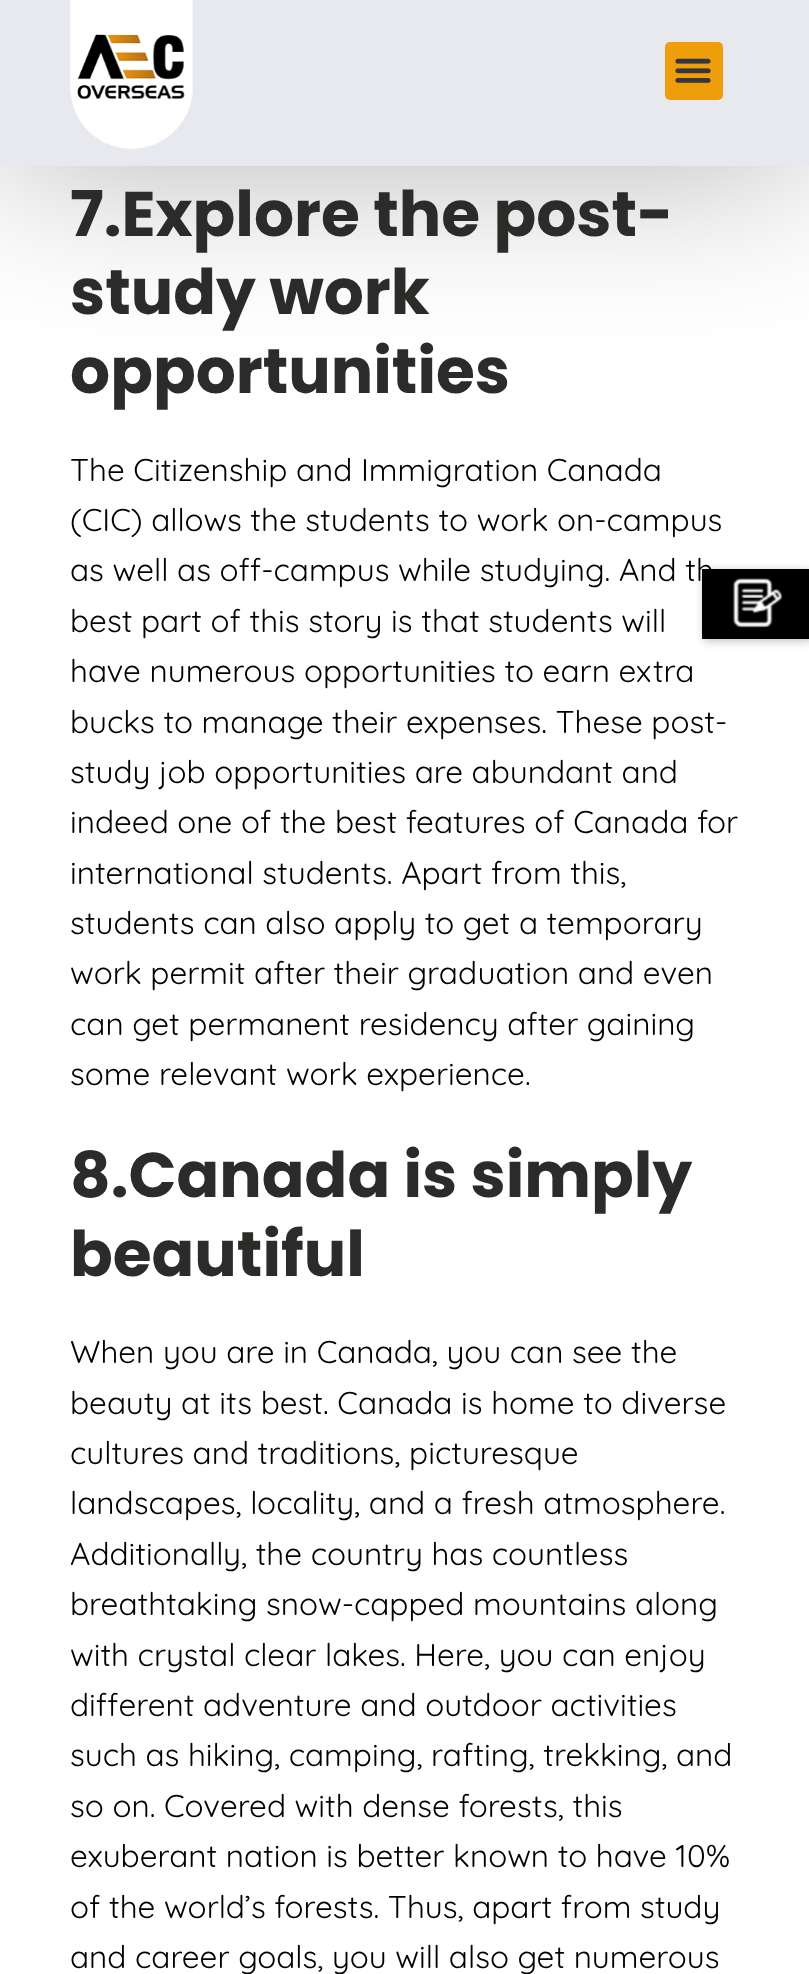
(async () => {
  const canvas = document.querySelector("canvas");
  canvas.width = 809;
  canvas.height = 1974;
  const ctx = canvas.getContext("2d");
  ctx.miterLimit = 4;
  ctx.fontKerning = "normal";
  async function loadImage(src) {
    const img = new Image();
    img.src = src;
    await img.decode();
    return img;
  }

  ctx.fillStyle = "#ffffff";
  ctx.fillRect(0, 0, 809, 1974);
  ctx.fillStyle = "rgba(0, 0, 0, 0.3)";
  ctx.filter = "blur(87.5px)";
  ctx.beginPath();
  ctx.rect(0, -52, 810, 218);
  ctx.fill();
  ctx.filter = "none";
  ctx.fillStyle = "#e8e9ee";
  ctx.fillRect(0, 0, 809, 166);
  ctx.drawImage(await loadImage("img/1.png"), 70, 0, 123, 149);
  ctx.fillStyle = "#ee9e0b";
  ctx.beginPath();
  ctx.roundRect(665, 42, 58, 58, 5);
  ctx.fill();
  ctx.drawImage(await loadImage("img/2.png"), 675, 58, 36, 25);
  ctx.fillStyle = "rgba(0, 0, 0, 0.25)";
  ctx.filter = "blur(5px)";
  ctx.beginPath();
  ctx.rect(704, 571, 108, 70);
  ctx.fill();
  ctx.filter = "none";
  ctx.fillStyle = "#000000";
  ctx.fillRect(702, 569, 107, 70);
  ctx.drawImage(await loadImage("img/3.png"), 732, 578, 51, 50);
  ctx.font = "bold 63px Poppins";
  ctx.fillStyle = "#2b2b29";
  for (const [text, x, y] of [
    ["7.Explore the post-", 70, 236],
    ["study work", 70, 314],
    ["opportunities", 70, 393],
  ]) {
    ctx.fillText(text, x, y);
  }
  ctx.font = "31.5px Quicksand";
  ctx.fillStyle = "#000000";
  for (const [text, x, y] of [
    ["The Citizenship and Immigration Canada", 70, 481],
    ["(CIC) allows the students to work on-campus", 70, 531],
    ["as well as off-campus while studying. And th", 70, 581],
    ["best part of this story is that students will", 70, 632],
    ["have numerous opportunities to earn extra", 70, 682],
    ["bucks to manage their expenses. These post-", 70, 733],
    ["study job opportunities are abundant and", 70, 783],
    ["indeed one of the best features of Canada for", 70, 833],
    ["international students. Apart from this,", 70, 884],
    ["students can also apply to get a temporary", 70, 934],
    ["work permit after their graduation and even", 70, 984],
    ["can get permanent residency after gaining", 70, 1035],
    ["some relevant work experience.", 70, 1085],
  ]) {
    ctx.fillText(text, x, y);
  }
  ctx.font = "bold 63px Poppins";
  ctx.fillStyle = "#2b2b29";
  ctx.fillText("8.Canada is simply", 70, 1197);
  ctx.fillText("beautiful", 70, 1276);
  ctx.font = "31.5px Quicksand";
  ctx.fillStyle = "#000000";
  for (const [text, x, y] of [
    ["When you are in Canada, you can see the", 70, 1363],
    ["beauty at its best. Canada is home to diverse", 70, 1414],
    ["cultures and traditions, picturesque", 70, 1464],
    ["landscapes, locality, and a fresh atmosphere.", 70, 1514],
    ["Additionally, the country has countless", 70, 1565],
    ["breathtaking snow-capped mountains along", 70, 1615],
    ["with crystal clear lakes. Here, you can enjoy", 70, 1666],
    ["different adventure and outdoor activities", 70, 1716],
    ["such as hiking, camping, rafting, trekking, and", 70, 1766],
    ["so on. Covered with dense forests, this", 70, 1817],
    ["exuberant nation is better known to have 10%", 70, 1867],
    ["of the world’s forests. Thus, apart from study", 70, 1918],
    ["and career goals, you will also get numerous", 70, 1968],
  ]) {
    ctx.fillText(text, x, y);
  }
})();
